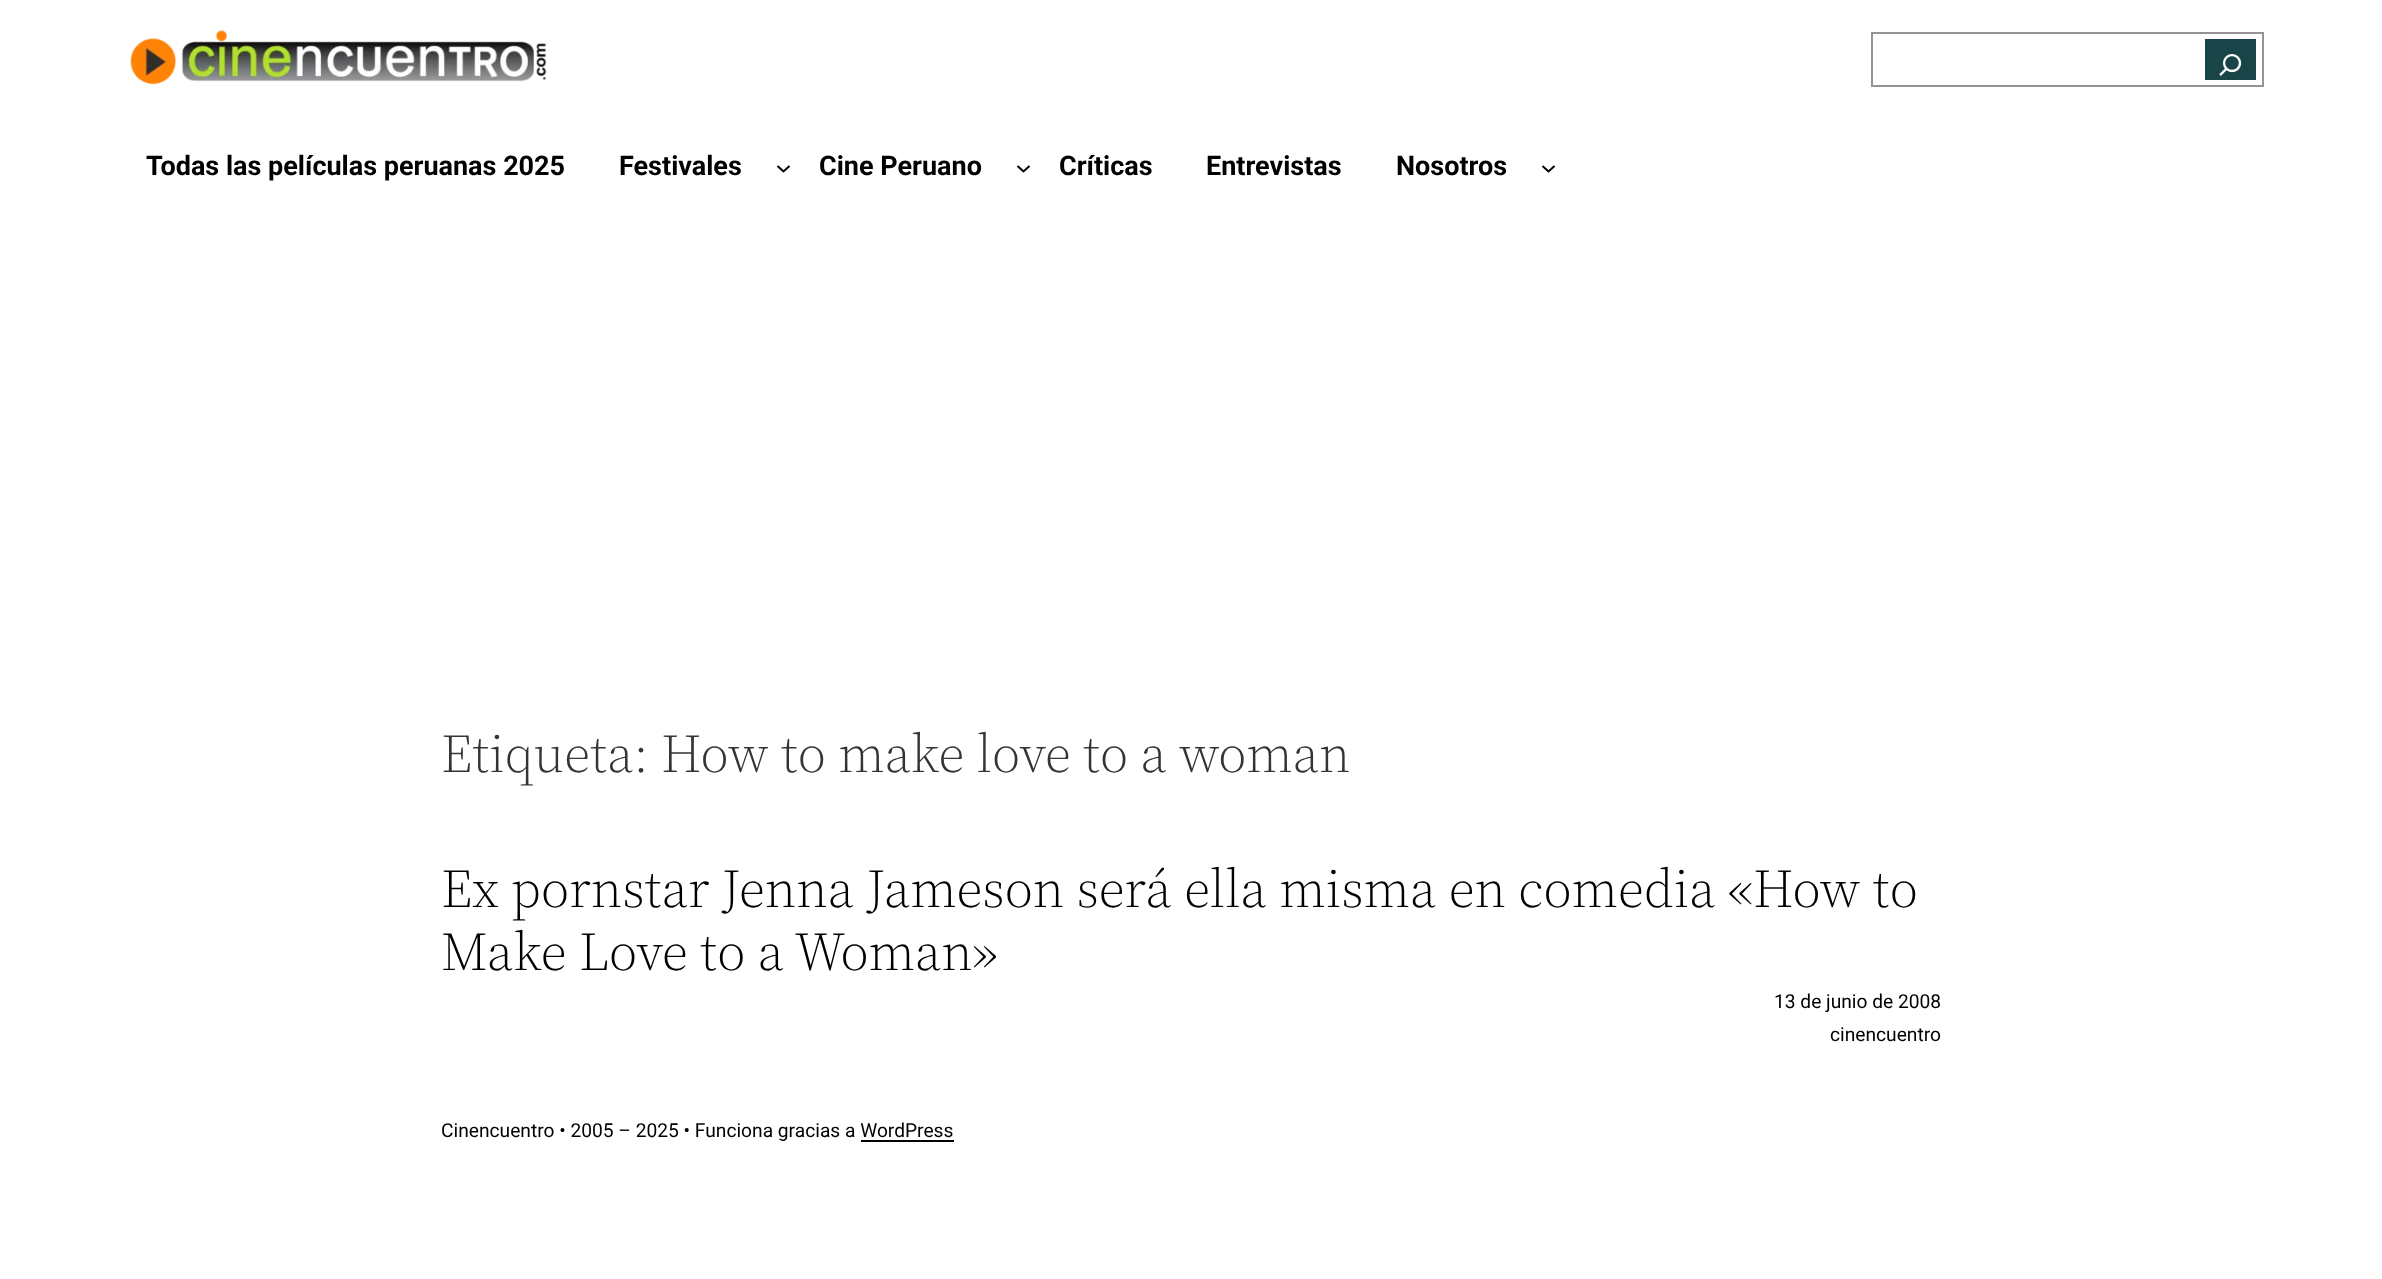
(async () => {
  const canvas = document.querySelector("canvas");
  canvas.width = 2382;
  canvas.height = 1279;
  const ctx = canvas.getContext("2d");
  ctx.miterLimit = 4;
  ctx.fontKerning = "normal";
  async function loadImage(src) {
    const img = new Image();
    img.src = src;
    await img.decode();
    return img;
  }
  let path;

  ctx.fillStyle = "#ffffff";
  ctx.fillRect(0, 0, 2382, 1279);
  ctx.drawImage(await loadImage("img/1.png"), 130, 30, 417, 55);
  ctx.strokeStyle = "#949494";
  ctx.lineWidth = 2;
  ctx.strokeRect(1872, 33, 391, 53);
  ctx.fillStyle = "#1a4548";
  ctx.fillRect(2205, 39, 51, 41);
  ctx.drawImage(await loadImage("img/2.png"), 2219, 54, 23, 22);
  path = new Path2D("M777.5 166L783.5 171.5L789.5 166");
  ctx.strokeStyle = "#000000";
  ctx.stroke(path);
  path = new Path2D("M1017.5 166L1023.5 171.5L1029.5 166");
  ctx.stroke(path);
  path = new Path2D("M1542.5 166L1548.5 171.5L1554.5 166");
  ctx.stroke(path);
  ctx.fillStyle = "#000000";
  ctx.fillRect(861, 1140, 93, 2);
  ctx.font = "bold 27px Roboto";
  for (const [text, x, y] of [
    ["Todas las películas peruanas 2025", 146, 175],
    ["Festivales", 619, 175],
    ["Cine Peruano", 819, 175],
    ["Críticas", 1059, 175],
    ["Entrevistas", 1206, 175],
    ["Nosotros", 1396, 175],
  ]) {
    ctx.fillText(text, x, y);
  }
  ctx.font = "300 54px 'Source Serif 4'";
  ctx.fillStyle = "#333435";
  ctx.fillText("Etiqueta: How to make love to a woman", 441, 772);
  ctx.fillStyle = "#000000";
  ctx.fillText("Ex pornstar Jenna Jameson será ella misma en comedia «How to", 441, 907);
  ctx.fillText("Make Love to a Woman»", 441, 970);
  ctx.font = "19.2px Roboto";
  for (const [text, x, y] of [
    ["13 de junio de 2008", 1774, 1008],
    ["cinencuentro", 1830, 1041],
    ["Cinencuentro • 2005 – 2025 • Funciona gracias a WordPress", 441, 1137],
  ]) {
    ctx.fillText(text, x, y);
  }
})();
